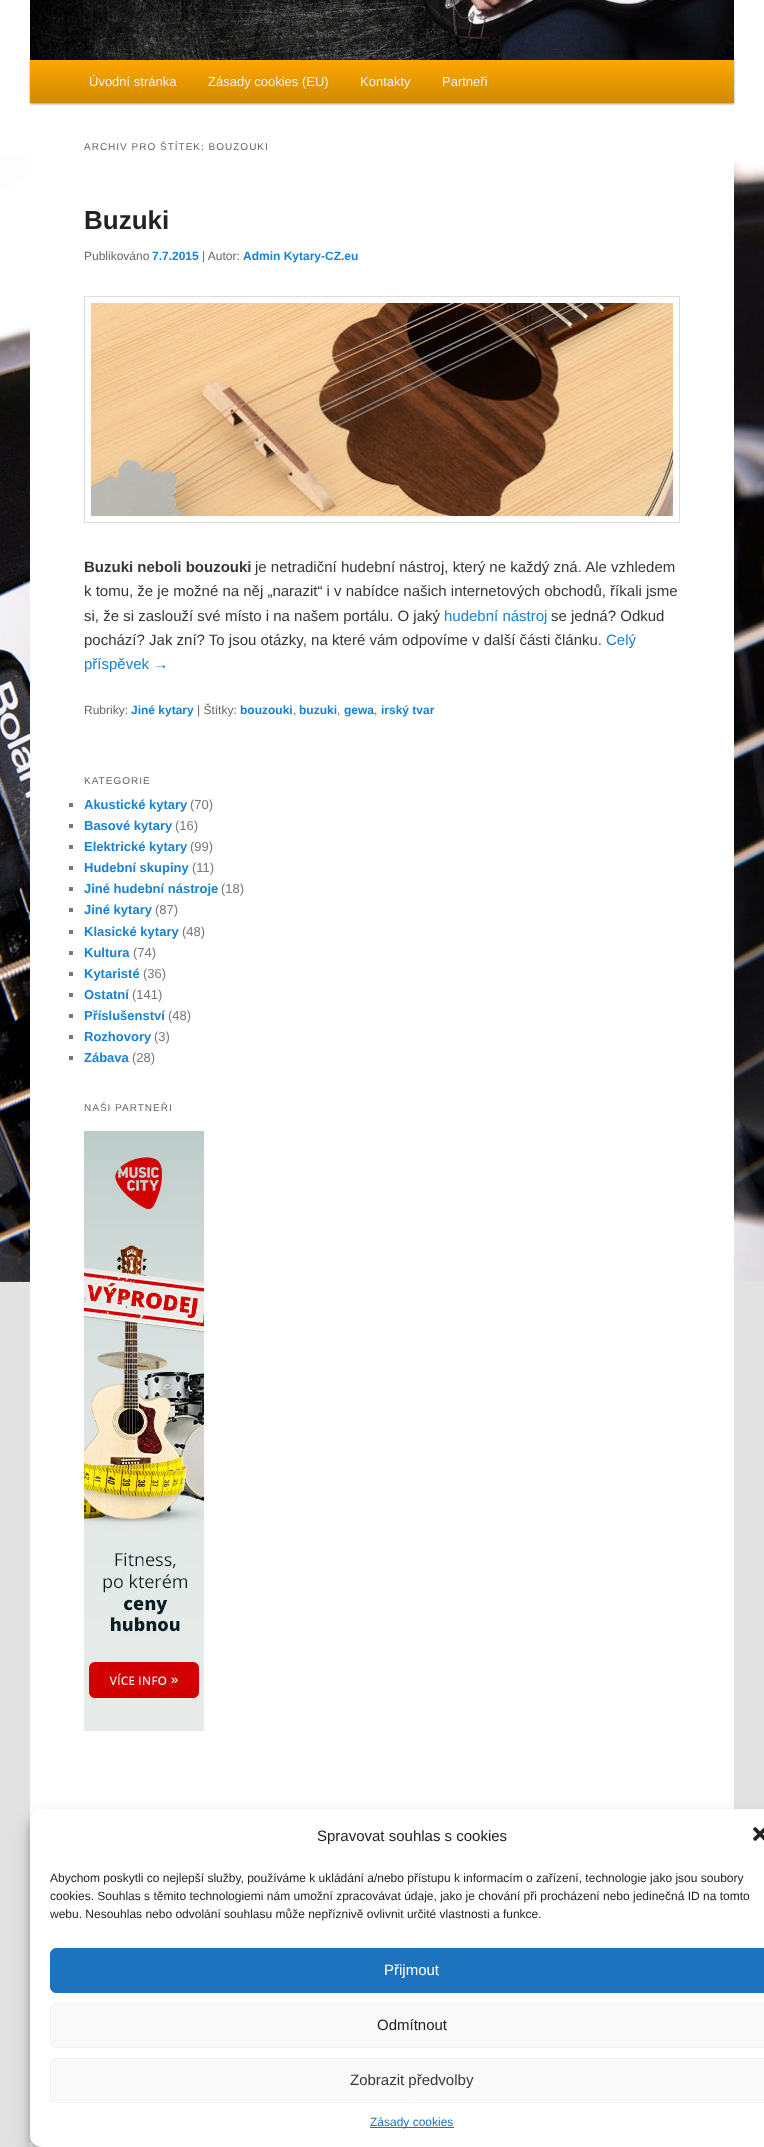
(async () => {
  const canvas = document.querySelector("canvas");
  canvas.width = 764;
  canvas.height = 2147;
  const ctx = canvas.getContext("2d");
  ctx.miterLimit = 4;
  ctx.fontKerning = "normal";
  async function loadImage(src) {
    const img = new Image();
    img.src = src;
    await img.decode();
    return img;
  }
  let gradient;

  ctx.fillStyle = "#e2e2e2";
  ctx.fillRect(0, 0, 764, 2147);
  ctx.drawImage(await loadImage("img/1.png"), 0, 0, 764, 1282);
  ctx.fillStyle = "#ffffff";
  ctx.fillRect(30, 103, 704, 2044);
  ctx.fillStyle = "rgba(0, 0, 0, 0.4)";
  ctx.filter = "blur(1px)";
  ctx.beginPath();
  ctx.rect(30, 61, 704, 43);
  ctx.fill();
  ctx.filter = "none";
  ctx.drawImage(await loadImage("img/2.png"), 30, 0, 704, 60);
  gradient = ctx.createLinearGradient(382, 60, 382, 103);
  gradient.addColorStop(0, "#fda701");
  gradient.addColorStop(1, "#d18a02");
  ctx.fillStyle = gradient;
  ctx.fillRect(30, 60, 704, 43);
  ctx.strokeStyle = "#dddddd";
  ctx.strokeRect(84.5, 296.5, 595, 226);
  ctx.drawImage(await loadImage("img/3.png"), 91, 303, 582, 213);
  for (const [x, y, w, h, color] of [
    [69, 803, 4, 4, "#777777"],
    [69, 824, 4, 4, "#777777"],
    [69, 845, 4, 4, "#777777"],
    [69, 866, 4, 4, "#777777"],
    [69, 887, 4, 4, "#777777"],
    [69, 908, 4, 4, "#777777"],
    [69, 930, 4, 4, "#777777"],
    [69, 951, 4, 4, "#777777"],
    [69, 972, 4, 4, "#777777"],
    [69, 993, 4, 4, "#777777"],
    [69, 1014, 4, 4, "#777777"],
    [69, 1035, 4, 4, "#777777"],
    [69, 1056, 4, 4, "#777777"],
  ]) {
    ctx.fillStyle = color;
    ctx.fillRect(x, y, w, h);
  }
  ctx.drawImage(await loadImage("img/4.png"), 84, 1131, 120, 600);
  ctx.fillStyle = "rgba(0, 0, 0, 0.23)";
  ctx.filter = "blur(3px)";
  ctx.beginPath();
  ctx.roundRect(30, 1815, 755, 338, 12);
  ctx.fill();
  ctx.filter = "none";
  ctx.fillStyle = "rgba(0, 0, 0, 0.19)";
  ctx.filter = "blur(10px)";
  ctx.beginPath();
  ctx.roundRect(30, 1819, 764, 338, 12);
  ctx.fill();
  ctx.filter = "none";
  ctx.fillStyle = "#ffffff";
  ctx.beginPath();
  ctx.roundRect(30, 1809, 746, 338, 12);
  ctx.fill();
  ctx.drawImage(await loadImage("img/5.png"), 753, 1827, 11, 14);
  ctx.fillStyle = "#1e73be";
  ctx.beginPath();
  ctx.roundRect(50.5, 1948.5, 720, 44, 5.5);
  ctx.fill();
  ctx.strokeStyle = "#1e73be";
  ctx.stroke();
  ctx.fillStyle = "#f9f9f9";
  ctx.beginPath();
  ctx.roundRect(50.5, 2003.5, 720, 44, 5.5);
  ctx.fill();
  ctx.strokeStyle = "#f2f2f2";
  ctx.stroke();
  ctx.beginPath();
  ctx.roundRect(50.5, 2058.5, 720, 44, 5.5);
  ctx.fill();
  ctx.stroke();
  ctx.fillStyle = "#1e73be";
  ctx.fillRect(370, 2127, 84, 1);
  ctx.font = "13px Liberation Sans";
  ctx.fillStyle = "#eeeeee";
  for (const [text, x, y] of [
    ["Úvodní stránka", 89, 86],
    ["Zásady cookies (EU)", 208, 86],
    ["Kontakty", 360, 86],
    ["Partneři", 442, 86],
  ]) {
    ctx.fillText(text, x, y);
  }
  ctx.letterSpacing = "1px";
  ctx.font = "10px Liberation Sans";
  ctx.fillStyle = "#666666";
  ctx.fillText("ARCHIV PRO ŠTÍTEK: BOUZOUKI", 84, 150);
  ctx.letterSpacing = "0px";
  ctx.font = "bold 26px Liberation Sans";
  ctx.fillStyle = "#222222";
  ctx.fillText("Buzuki", 84, 229);
  ctx.font = "12px Liberation Sans";
  ctx.fillStyle = "#666666";
  ctx.fillText("Publikováno", 84, 260);
  ctx.font = "bold 12px Liberation Sans";
  ctx.fillStyle = "#1982d1";
  ctx.fillText("7.7.2015", 152, 260);
  ctx.font = "12px Liberation Sans";
  ctx.fillStyle = "#666666";
  ctx.fillText("| Autor:", 202, 260);
  ctx.font = "bold 12px Liberation Sans";
  ctx.fillStyle = "#1982d1";
  ctx.fillText("Admin Kytary-CZ.eu", 243, 260);
  ctx.font = "bold 15px Liberation Sans";
  ctx.fillStyle = "#373737";
  ctx.fillText("Buzuki neboli bouzouki", 84, 572);
  ctx.font = "15px Liberation Sans";
  for (const [text, x, y] of [
    ["je netradiční hudební nástroj, který ne každý zná. Ale vzhledem", 255, 572],
    ["k tomu, že je možné na něj „narazit“ i v nabídce našich internetových obchodů, říkali jsme", 84, 596],
    ["si, že si zaslouží své místo i na našem portálu. O jaký", 84, 621],
  ]) {
    ctx.fillText(text, x, y);
  }
  ctx.fillStyle = "#1982d1";
  ctx.fillText("hudební nástroj", 444, 621);
  ctx.fillStyle = "#373737";
  ctx.fillText("se jedná? Odkud", 551, 621);
  ctx.fillText("pochází? Jak zní? To jsou otázky, na které vám odpovíme v další části článku.", 84, 645);
  ctx.fillStyle = "#1982d1";
  ctx.fillText("Celý", 606, 645);
  ctx.fillText("příspěvek →", 84, 669);
  ctx.font = "12px Liberation Sans";
  ctx.fillStyle = "#666666";
  ctx.fillText("Rubriky:", 84, 714);
  ctx.font = "bold 12px Liberation Sans";
  ctx.fillStyle = "#1982d1";
  ctx.fillText("Jiné kytary", 131, 714);
  ctx.font = "12px Liberation Sans";
  ctx.fillStyle = "#666666";
  ctx.fillText("| Štítky:", 197, 714);
  ctx.font = "bold 12px Liberation Sans";
  ctx.fillStyle = "#1982d1";
  ctx.fillText("bouzouki", 240, 714);
  ctx.font = "12px Liberation Sans";
  ctx.fillStyle = "#666666";
  ctx.fillText(",", 293, 714);
  ctx.font = "bold 12px Liberation Sans";
  ctx.fillStyle = "#1982d1";
  ctx.fillText("buzuki", 299, 714);
  ctx.font = "12px Liberation Sans";
  ctx.fillStyle = "#666666";
  ctx.fillText(",", 337, 714);
  ctx.font = "bold 12px Liberation Sans";
  ctx.fillStyle = "#1982d1";
  ctx.fillText("gewa", 344, 714);
  ctx.font = "12px Liberation Sans";
  ctx.fillStyle = "#666666";
  ctx.fillText(",", 374, 714);
  ctx.font = "bold 12px Liberation Sans";
  ctx.fillStyle = "#1982d1";
  ctx.fillText("irský tvar", 381, 714);
  ctx.letterSpacing = "1px";
  ctx.font = "10px Liberation Sans";
  ctx.fillStyle = "#666666";
  ctx.fillText("KATEGORIE", 84, 784);
  ctx.letterSpacing = "0px";
  ctx.font = "bold 13px Liberation Sans";
  ctx.fillStyle = "#1982d1";
  ctx.fillText("Akustické kytary", 84, 809);
  ctx.font = "13px Liberation Sans";
  ctx.fillStyle = "#777777";
  ctx.fillText("(70)", 190, 809);
  ctx.font = "bold 13px Liberation Sans";
  ctx.fillStyle = "#1982d1";
  ctx.fillText("Basové kytary", 84, 830);
  ctx.font = "13px Liberation Sans";
  ctx.fillStyle = "#777777";
  ctx.fillText("(16)", 175, 830);
  ctx.font = "bold 13px Liberation Sans";
  ctx.fillStyle = "#1982d1";
  ctx.fillText("Elektrické kytary", 84, 851);
  ctx.font = "13px Liberation Sans";
  ctx.fillStyle = "#777777";
  ctx.fillText("(99)", 190, 851);
  ctx.font = "bold 13px Liberation Sans";
  ctx.fillStyle = "#1982d1";
  ctx.fillText("Hudební skupiny", 84, 872);
  ctx.font = "13px Liberation Sans";
  ctx.fillStyle = "#777777";
  ctx.fillText("(11)", 192, 872);
  ctx.font = "bold 13px Liberation Sans";
  ctx.fillStyle = "#1982d1";
  ctx.fillText("Jiné hudební nástroje", 84, 893);
  ctx.font = "13px Liberation Sans";
  ctx.fillStyle = "#777777";
  ctx.fillText("(18)", 221, 893);
  ctx.font = "bold 13px Liberation Sans";
  ctx.fillStyle = "#1982d1";
  ctx.fillText("Jiné kytary", 84, 914);
  ctx.font = "13px Liberation Sans";
  ctx.fillStyle = "#777777";
  ctx.fillText("(87)", 155, 914);
  ctx.font = "bold 13px Liberation Sans";
  ctx.fillStyle = "#1982d1";
  ctx.fillText("Klasické kytary", 84, 936);
  ctx.font = "13px Liberation Sans";
  ctx.fillStyle = "#777777";
  ctx.fillText("(48)", 182, 936);
  ctx.font = "bold 13px Liberation Sans";
  ctx.fillStyle = "#1982d1";
  ctx.fillText("Kultura", 84, 957);
  ctx.font = "13px Liberation Sans";
  ctx.fillStyle = "#777777";
  ctx.fillText("(74)", 133, 957);
  ctx.font = "bold 13px Liberation Sans";
  ctx.fillStyle = "#1982d1";
  ctx.fillText("Kytaristé", 84, 978);
  ctx.font = "13px Liberation Sans";
  ctx.fillStyle = "#777777";
  ctx.fillText("(36)", 143, 978);
  ctx.font = "bold 13px Liberation Sans";
  ctx.fillStyle = "#1982d1";
  ctx.fillText("Ostatní", 84, 999);
  ctx.font = "13px Liberation Sans";
  ctx.fillStyle = "#777777";
  ctx.fillText("(141)", 132, 999);
  ctx.font = "bold 13px Liberation Sans";
  ctx.fillStyle = "#1982d1";
  ctx.fillText("Příslušenství", 84, 1020);
  ctx.font = "13px Liberation Sans";
  ctx.fillStyle = "#777777";
  ctx.fillText("(48)", 168, 1020);
  ctx.font = "bold 13px Liberation Sans";
  ctx.fillStyle = "#1982d1";
  ctx.fillText("Rozhovory", 84, 1041);
  ctx.font = "13px Liberation Sans";
  ctx.fillStyle = "#777777";
  ctx.fillText("(3)", 154, 1041);
  ctx.font = "bold 13px Liberation Sans";
  ctx.fillStyle = "#1982d1";
  ctx.fillText("Zábava", 84, 1062);
  ctx.font = "13px Liberation Sans";
  ctx.fillStyle = "#777777";
  ctx.fillText("(28)", 132, 1062);
  ctx.letterSpacing = "1px";
  ctx.font = "10px Liberation Sans";
  ctx.fillStyle = "#666666";
  ctx.fillText("NAŠI PARTNEŘI", 84, 1111);
  ctx.letterSpacing = "0px";
  ctx.font = "15px Liberation Sans";
  ctx.fillStyle = "#222222";
  ctx.fillText("Spravovat souhlas s cookies", 317, 1841);
  ctx.font = "12px Liberation Sans";
  for (const [text, x, y] of [
    ["Abychom poskytli co nejlepší služby, používáme k ukládání a/nebo přístupu k informacím o zařízení, technologie jako jsou soubory", 50, 1882],
    ["cookies. Souhlas s těmito technologiemi nám umožní zpracovávat údaje, jako je chování při procházení nebo jedinečná ID na tomto", 50, 1900],
    ["webu. Nesouhlas nebo odvolání souhlasu může nepříznivě ovlivnit určité vlastnosti a funkce.", 50, 1918],
  ]) {
    ctx.fillText(text, x, y);
  }
  ctx.font = "15px Liberation Sans";
  ctx.fillStyle = "#ffffff";
  ctx.fillText("Přijmout", 384, 1975);
  ctx.fillStyle = "#222222";
  ctx.fillText("Odmítnout", 377, 2030);
  ctx.fillStyle = "#373737";
  ctx.fillText("Zobrazit předvolby", 350, 2085);
  ctx.font = "12px Liberation Sans";
  ctx.fillStyle = "#1e73be";
  ctx.fillText("Zásady cookies", 370, 2126);
})();
